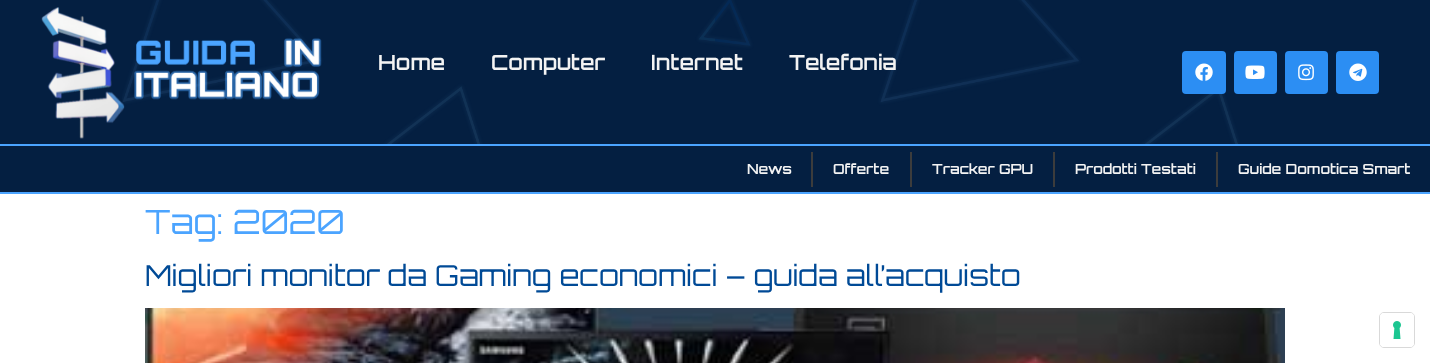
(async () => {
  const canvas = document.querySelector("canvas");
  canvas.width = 1430;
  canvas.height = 363;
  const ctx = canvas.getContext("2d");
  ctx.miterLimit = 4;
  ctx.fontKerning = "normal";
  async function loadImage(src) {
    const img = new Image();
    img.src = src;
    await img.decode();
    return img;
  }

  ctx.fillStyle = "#ffffff";
  ctx.fillRect(0, 0, 1430, 363);
  ctx.fillStyle = "#041f41";
  ctx.fillRect(0, 0, 1430, 144);
  ctx.drawImage(await loadImage("img/1.png"), 122, 0, 1118, 144);
  ctx.drawImage(await loadImage("img/2.png"), 41, 7, 281, 132);
  ctx.fillStyle = "#2c8ef3";
  ctx.beginPath();
  ctx.roundRect(1182, 51, 44, 43, 4);
  ctx.fill();
  ctx.drawImage(await loadImage("img/3.png"), 1195, 63, 18, 18);
  ctx.beginPath();
  ctx.roundRect(1234, 51, 43, 43, 4);
  ctx.fill();
  ctx.drawImage(await loadImage("img/4.png"), 1245, 65, 20, 14);
  ctx.beginPath();
  ctx.roundRect(1285, 51, 43, 43, 4);
  ctx.fill();
  ctx.drawImage(await loadImage("img/5.png"), 1298, 64, 16, 17);
  ctx.beginPath();
  ctx.roundRect(1336, 51, 43, 43, 4);
  ctx.fill();
  ctx.drawImage(await loadImage("img/6.png"), 1349, 63, 18, 18);
  for (const [x, y, w, h, color] of [
    [0, 146, 1430, 46, "#041f41"],
    [0, 144, 1430, 2, "#4ba4ff"],
    [0, 192, 1430, 2, "#4ba4ff"],
    [811, 152, 2, 35, "#3c3c3c"],
    [910, 152, 2, 35, "#3c3c3c"],
    [1053, 152, 2, 35, "#3c3c3c"],
    [1216, 152, 2, 35, "#3c3c3c"],
  ]) {
    ctx.fillStyle = color;
    ctx.fillRect(x, y, w, h);
  }
  ctx.drawImage(await loadImage("img/7.png"), 145, 308, 1140, 55);
  ctx.beginPath();
  ctx.roundRect(1379.5, 312.5, 35, 35, 4.5);
  ctx.strokeStyle = "#d9d9d9";
  ctx.stroke();
  ctx.fillStyle = "#ffffff";
  ctx.beginPath();
  ctx.roundRect(1380, 313, 34, 34, 4);
  ctx.fill();
  ctx.drawImage(await loadImage("img/8.png"), 1393, 321, 8, 18);
  ctx.font = "600 21px Orbitron";
  ctx.fillStyle = "#f3f3f3";
  for (const [text, x, y] of [
    ["Home", 378, 70],
    ["Computer", 491, 70],
    ["Internet", 651, 70],
    ["Telefonia", 789, 70],
  ]) {
    ctx.fillText(text, x, y);
  }
  ctx.font = "600 14px Orbitron";
  for (const [text, x, y] of [
    ["News", 747, 174],
    ["Offerte", 833, 174],
    ["Tracker GPU", 932, 174],
    ["Prodotti Testati", 1075, 174],
    ["Guide Domotica Smart", 1238, 174],
  ]) {
    ctx.fillText(text, x, y);
  }
  ctx.font = "33.5px Orbitron";
  ctx.fillStyle = "#4ba4ff";
  ctx.fillText("Tag: 2020", 145, 234);
  ctx.font = "28.8px Orbitron";
  ctx.fillStyle = "#004a96";
  ctx.fillText("Migliori monitor da Gaming economici – guida all’acquisto", 145, 286);
})();
